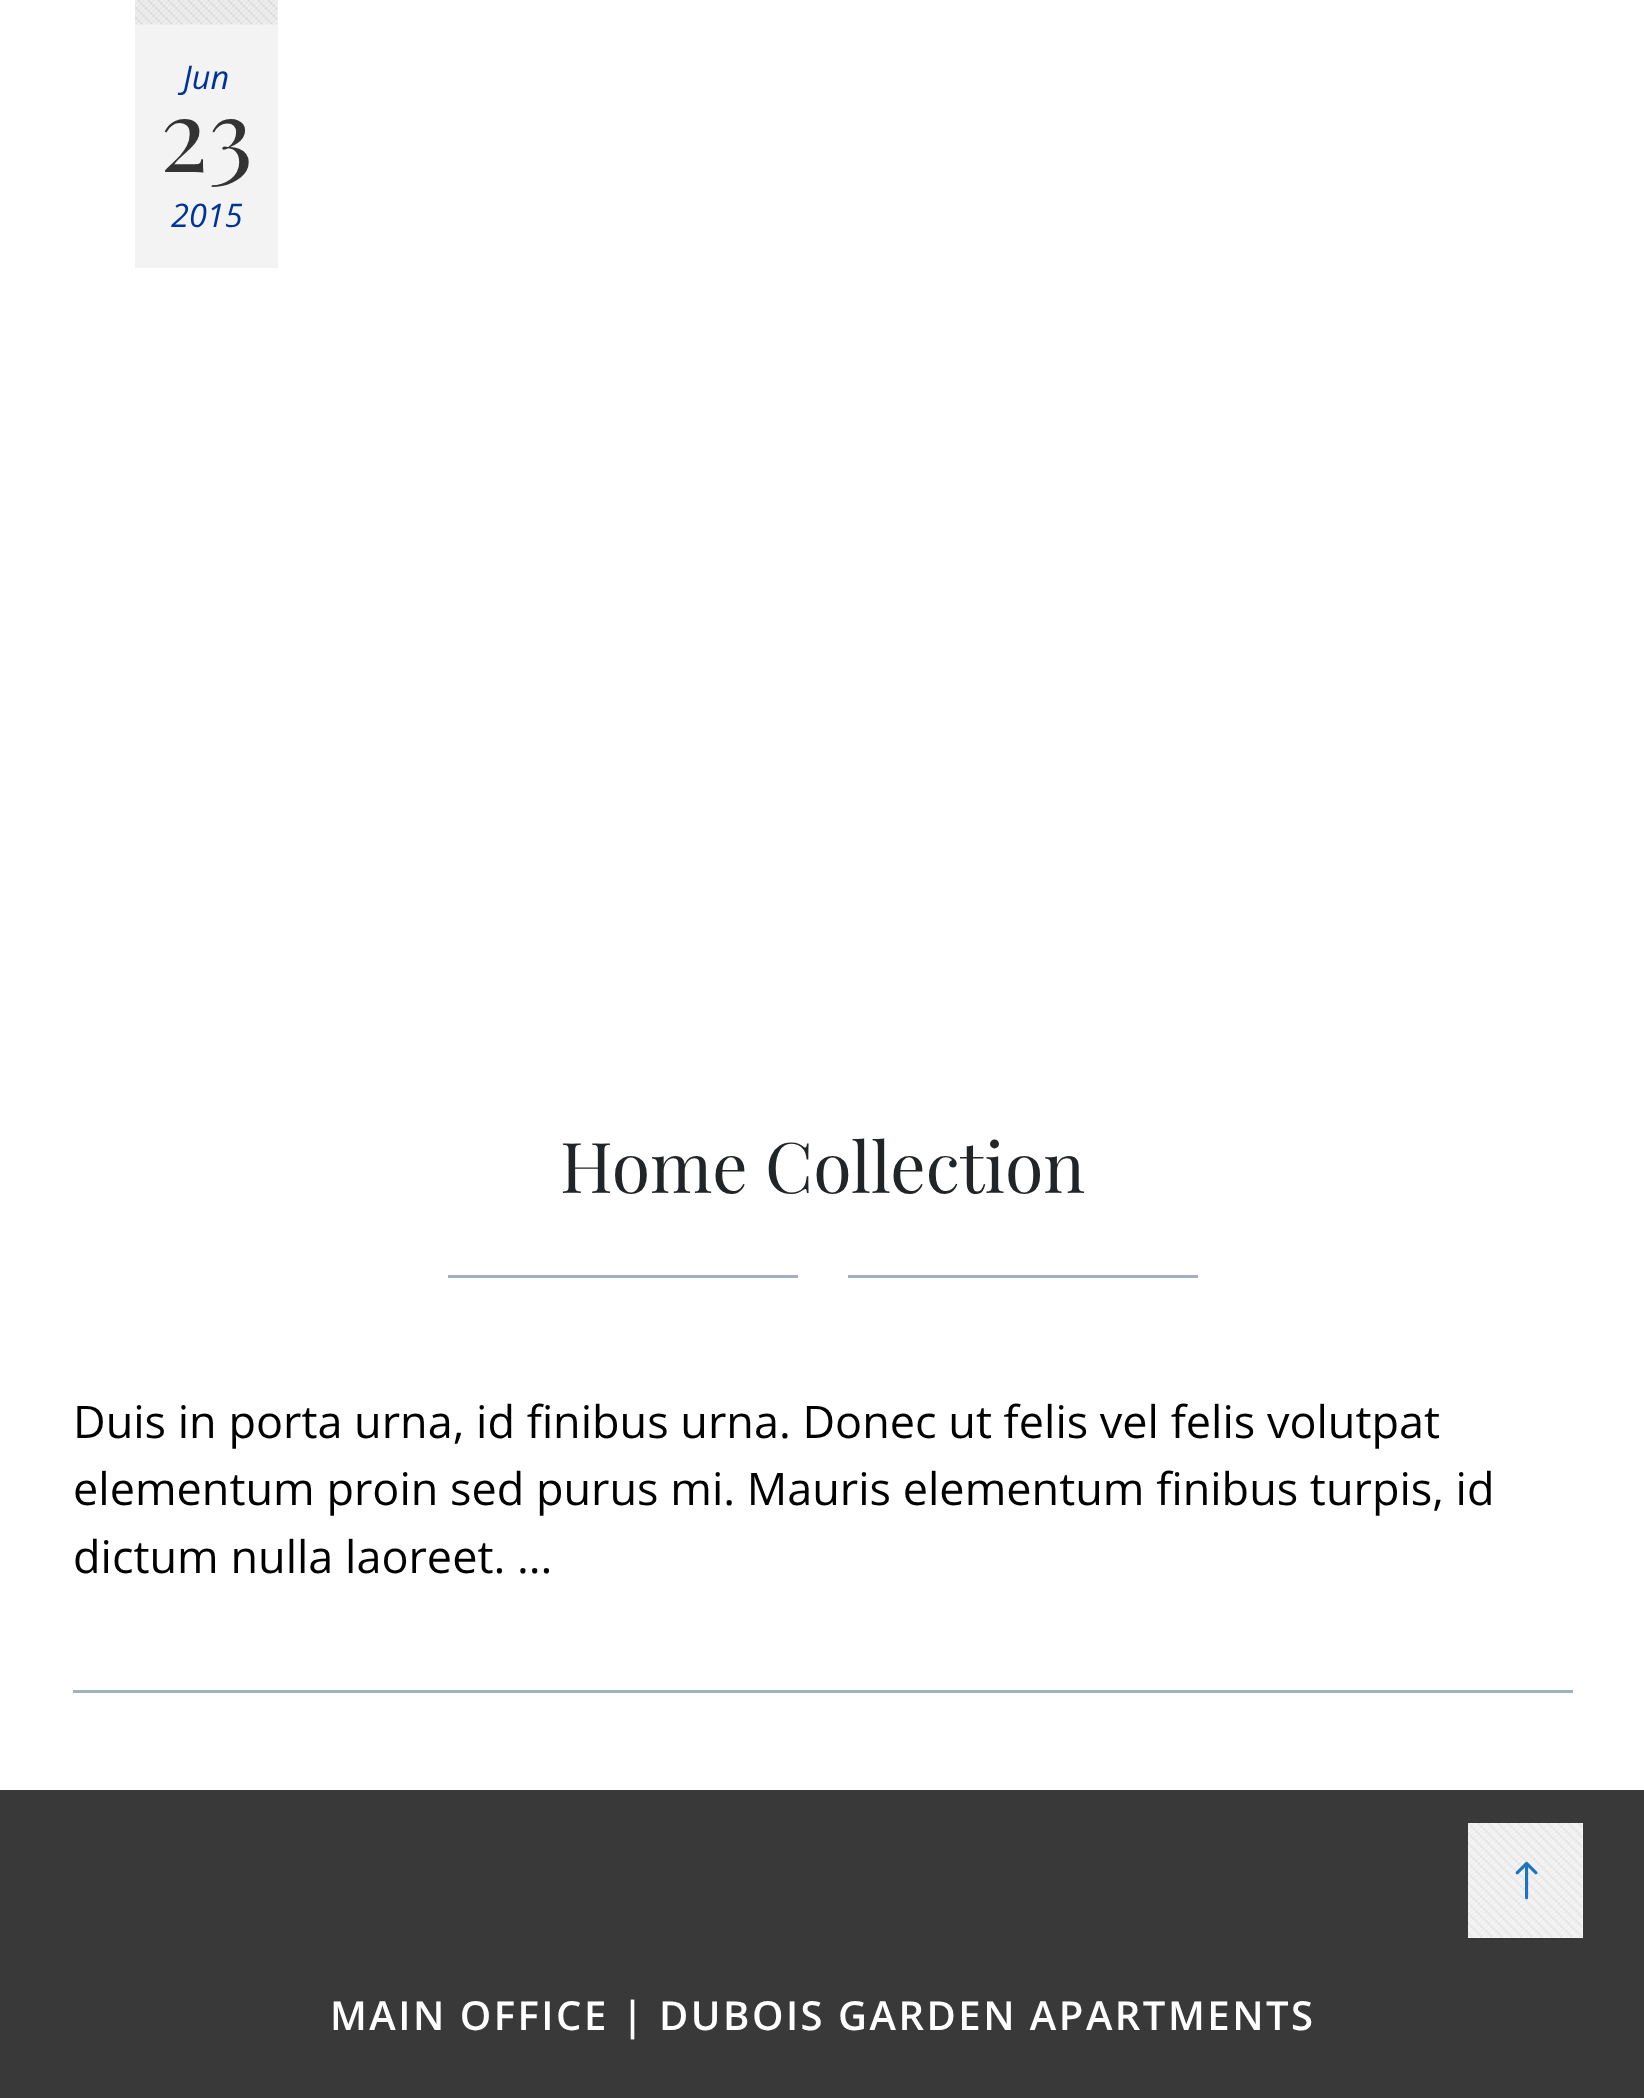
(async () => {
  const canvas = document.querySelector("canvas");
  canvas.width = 1644;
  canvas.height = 2098;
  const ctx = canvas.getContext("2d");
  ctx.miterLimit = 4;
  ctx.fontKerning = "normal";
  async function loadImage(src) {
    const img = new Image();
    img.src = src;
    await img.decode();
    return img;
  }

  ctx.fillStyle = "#ffffff";
  ctx.fillRect(0, 0, 1644, 2098);
  ctx.fillStyle = "#a2b1bf";
  ctx.fillRect(73, 1690, 1500, 3);
  ctx.fillStyle = "#f3f3f3";
  ctx.fillRect(135, 0, 143, 268);
  ctx.drawImage(await loadImage("img/1.png"), 135, 0, 143, 25);
  for (const [x, y, w, h, color] of [
    [448, 1275, 350, 3, "#a2b1bf"],
    [848, 1275, 350, 3, "#a2b1bf"],
    [0, 1790, 1644, 308, "#393939"],
    [1468, 1823, 115, 115, "#fafafa"],
  ]) {
    ctx.fillStyle = color;
    ctx.fillRect(x, y, w, h);
  }
  ctx.drawImage(await loadImage("img/2.png"), 1468, 1823, 115, 115);
  ctx.drawImage(await loadImage("img/3.png"), 1515, 1861, 23, 39);
  ctx.font = "italic 32.5px Open Sans";
  ctx.fillStyle = "#003399";
  ctx.fillText("Jun", 183, 89);
  ctx.font = "100px Playfair Display";
  ctx.fillStyle = "#333333";
  ctx.fillText("23", 160, 172);
  ctx.font = "italic 32.5px Open Sans";
  ctx.fillStyle = "#003399";
  ctx.fillText("2015", 171, 227);
  ctx.font = "70px Playfair Display";
  ctx.fillStyle = "#222527";
  ctx.fillText("Home Collection", 560, 1193);
  ctx.font = "45px Open Sans";
  ctx.fillStyle = "#000000";
  for (const [text, x, y] of [
    ["Duis in porta urna, id finibus urna. Donec ut felis vel felis volutpat", 73, 1438],
    ["elementum proin sed purus mi. Mauris elementum finibus turpis, id", 73, 1505],
    ["dictum nulla laoreet. ...", 73, 1573],
  ]) {
    ctx.fillText(text, x, y);
  }
  ctx.letterSpacing = "2.5px";
  ctx.font = "600 40px Open Sans";
  ctx.fillStyle = "#ffffff";
  ctx.fillText("MAIN OFFICE | DUBOIS GARDEN APARTMENTS", 330, 2030);
})();
